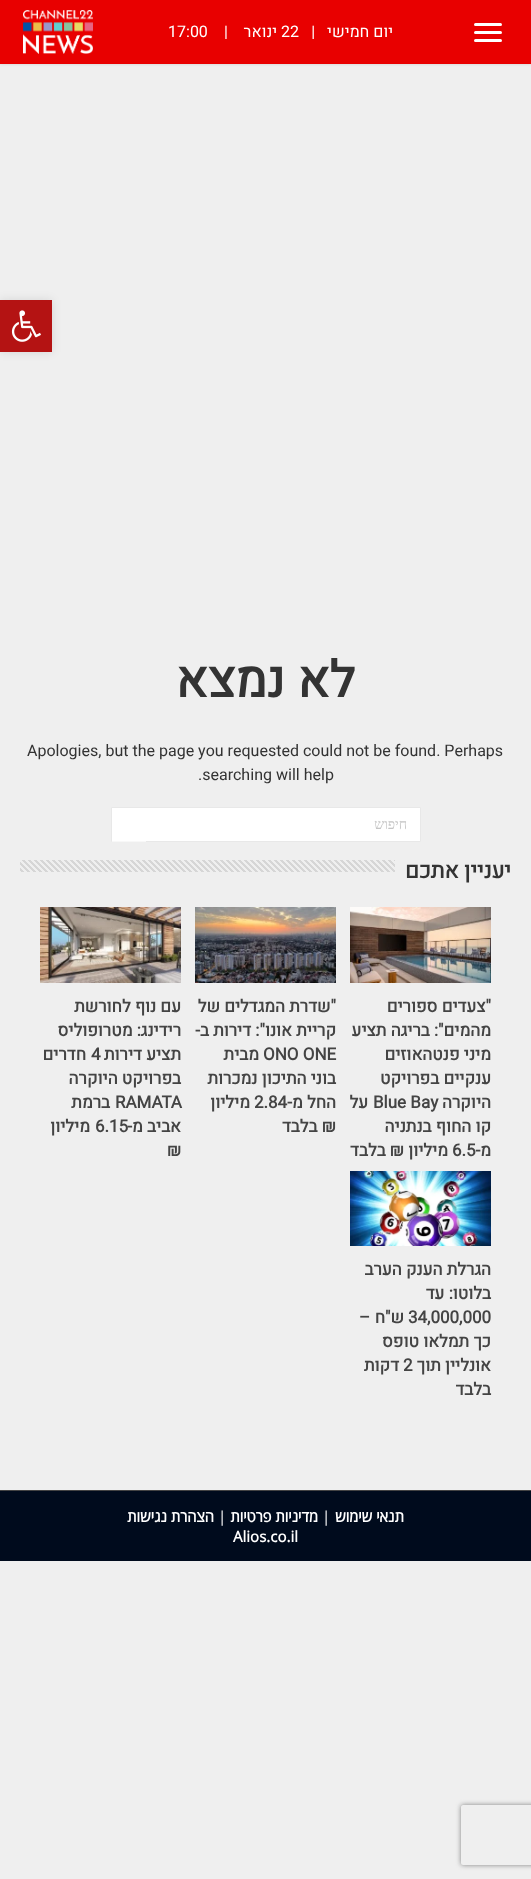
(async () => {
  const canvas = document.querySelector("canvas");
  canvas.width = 531;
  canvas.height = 1879;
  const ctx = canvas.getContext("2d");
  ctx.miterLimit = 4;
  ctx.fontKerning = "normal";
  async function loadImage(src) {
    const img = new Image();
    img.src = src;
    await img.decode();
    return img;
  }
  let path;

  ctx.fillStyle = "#efefef";
  ctx.fillRect(0, 0, 531, 1879);
  ctx.fillStyle = "#cacaca";
  ctx.filter = "blur(1.5px)";
  ctx.beginPath();
  ctx.rect(0, 0, 531, 64);
  ctx.fill();
  ctx.filter = "none";
  ctx.fillStyle = "#e80000";
  ctx.fillRect(0, 0, 531, 64);
  ctx.fillStyle = "#ffffff";
  ctx.beginPath();
  ctx.roundRect(474, 23, 28, 3, 1.5);
  ctx.fill();
  ctx.beginPath();
  ctx.roundRect(474, 31, 28, 3, 1.5);
  ctx.fill();
  ctx.beginPath();
  ctx.roundRect(474, 39, 28, 3, 1.5);
  ctx.fill();
  ctx.drawImage(await loadImage("img/1.png"), 23, 10, 70, 44);
  ctx.beginPath();
  ctx.rect(111.5, 807.5, 309, 34);
  ctx.fill();
  ctx.strokeStyle = "#e8e8e8";
  ctx.stroke();
  ctx.fillStyle = "rgba(255, 255, 255, 0.7)";
  ctx.fillRect(112, 841, 34, 1);
  ctx.drawImage(await loadImage("img/2.png"), 20, 860, 375, 12);
  ctx.drawImage(await loadImage("img/3.png"), 350, 907, 141, 76);
  ctx.drawImage(await loadImage("img/4.png"), 195, 907, 141, 76);
  ctx.drawImage(await loadImage("img/5.png"), 40, 907, 141, 76);
  ctx.drawImage(await loadImage("img/6.png"), 350, 1171, 141, 75);
  ctx.fillStyle = "#000b1d";
  ctx.fillRect(0, 1491, 531, 70);
  ctx.fillStyle = "#444444";
  ctx.fillRect(0, 1490, 531, 1);
  ctx.fillStyle = "rgba(0, 0, 0, 0.1)";
  ctx.filter = "blur(5px)";
  ctx.beginPath();
  ctx.rect(0, 300, 52, 52);
  ctx.fill();
  ctx.filter = "none";
  ctx.fillStyle = "#b41313";
  ctx.fillRect(0, 300, 52, 52);
  ctx.drawImage(await loadImage("img/7.png"), 11, 310, 30, 32);
  ctx.save();
  path = new Path2D("M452 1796H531V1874H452ZM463 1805H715C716 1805 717 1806 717 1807V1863C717 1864 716 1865 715 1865H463C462 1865 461 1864 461 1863V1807C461 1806 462 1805 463 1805Z");
  ctx.clip(path, "evenodd");
  ctx.fillStyle = "#808080";
  ctx.filter = "blur(2.5px)";
  ctx.beginPath();
  ctx.roundRect(461, 1805, 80, 60, 2);
  ctx.fill();
  ctx.filter = "none";
  ctx.restore();
  ctx.direction = "rtl";
  ctx.font = "16px Heebo";
  ctx.fillStyle = "#ffffff";
  ctx.fillText("יום חמישי   |", 393, 37);
  ctx.direction = "ltr";
  ctx.fillText("22", 281, 37);
  ctx.direction = "rtl";
  ctx.fillText("ינואר", 277, 37);
  ctx.direction = "ltr";
  ctx.fillText("|", 224, 37);
  ctx.fillText("17:00", 168, 37);
  ctx.direction = "rtl";
  ctx.font = "bold 50px Heebo";
  ctx.fillStyle = "#333333";
  ctx.fillText("לא נמצא", 355, 697);
  ctx.direction = "ltr";
  ctx.font = "16px Heebo";
  ctx.fillText("Apologies, but the page you requested could not be found. Perhaps", 27, 756);
  ctx.fillText(".searching will help", 198, 780);
  ctx.direction = "rtl";
  ctx.font = "14px Liberation Serif";
  ctx.fillStyle = "#c5c5c5";
  ctx.fillText("חיפוש", 407, 829);
  ctx.font = "bold 22px Heebo";
  ctx.fillStyle = "#333333";
  ctx.fillText("יעניין אתכם", 511, 878);
  ctx.font = "bold 17px Heebo";
  ctx.fillStyle = "#444444";
  for (const [text, x, y] of [
    ["\"צעדים ספורים", 491, 1012],
    ["מהמים\": בריגה תציע", 491, 1036],
    ["מיני פנטהאוזים", 491, 1060],
    ["ענקיים בפרויקט", 491, 1084],
    ["היוקרה", 491, 1108],
  ]) {
    ctx.fillText(text, x, y);
  }
  ctx.direction = "ltr";
  ctx.fillText("Blue Bay", 373, 1108);
  ctx.direction = "rtl";
  for (const [text, x, y] of [
    ["על", 368, 1108],
    ["קו החוף בנתניה", 491, 1132],
    ["מ-", 491, 1156],
  ]) {
    ctx.fillText(text, x, y);
  }
  ctx.direction = "ltr";
  ctx.fillText("6.5", 452, 1156);
  ctx.direction = "rtl";
  for (const [text, x, y] of [
    ["מיליון ₪ בלבד", 448, 1156],
    ["\"שדרת המגדלים של", 336, 1012],
    ["קריית אונו\": דירות ב-", 336, 1036],
  ]) {
    ctx.fillText(text, x, y);
  }
  ctx.direction = "ltr";
  ctx.fillText("ONO ONE", 263, 1060);
  ctx.direction = "rtl";
  ctx.fillText("מבית", 259, 1060);
  ctx.fillText("בוני התיכון נמכרות", 336, 1084);
  ctx.direction = "ltr";
  ctx.fillText("2.84", 254, 1108);
  ctx.direction = "rtl";
  for (const [text, x, y] of [
    ["החל מ-", 336, 1108],
    ["מיליון", 250, 1108],
    ["₪ בלבד", 336, 1132],
    ["עם נוף לחורשת", 181, 1012],
    ["רידינג: מטרופוליס", 181, 1036],
    ["תציע דירות", 181, 1060],
  ]) {
    ctx.fillText(text, x, y);
  }
  ctx.direction = "ltr";
  ctx.fillText("4", 91, 1060);
  ctx.direction = "rtl";
  ctx.fillText("חדרים", 86, 1060);
  ctx.fillText("בפרויקט היוקרה", 181, 1084);
  ctx.direction = "ltr";
  ctx.fillText("RAMATA", 115, 1108);
  ctx.direction = "rtl";
  ctx.fillText("ברמת", 110, 1108);
  ctx.fillText("אביב מ-", 181, 1132);
  ctx.direction = "ltr";
  ctx.fillText("6.15", 95, 1132);
  ctx.direction = "rtl";
  ctx.fillText("מיליון", 90, 1132);
  ctx.direction = "ltr";
  ctx.fillText("₪", 167, 1156);
  ctx.direction = "rtl";
  ctx.fillText("הגרלת הענק הערב", 491, 1275);
  ctx.fillText("בלוטו: עד", 491, 1299);
  ctx.direction = "ltr";
  ctx.fillText("34,000,000", 408, 1323);
  ctx.direction = "rtl";
  for (const [text, x, y] of [
    ["ש\"ח –", 404, 1323],
    ["כך תמלאו טופס", 491, 1347],
    ["אונליין תוך", 491, 1371],
  ]) {
    ctx.fillText(text, x, y);
  }
  ctx.direction = "ltr";
  ctx.fillText("2", 403, 1371);
  ctx.direction = "rtl";
  ctx.fillText("דקות", 399, 1371);
  ctx.fillText("בלבד", 491, 1395);
  ctx.font = "bold 15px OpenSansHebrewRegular";
  ctx.fillStyle = "#ffffff";
  ctx.fillText("תנאי שימוש", 404, 1522);
  ctx.direction = "ltr";
  ctx.font = "15px OpenSansHebrewRegular";
  ctx.fillText("|", 322, 1522);
  ctx.direction = "rtl";
  ctx.font = "bold 15px OpenSansHebrewRegular";
  ctx.fillText("מדיניות פרטיות", 318, 1522);
  ctx.direction = "ltr";
  ctx.font = "15px OpenSansHebrewRegular";
  ctx.fillText("|", 218, 1522);
  ctx.direction = "rtl";
  ctx.font = "bold 15px OpenSansHebrewRegular";
  ctx.fillText("הצהרת נגישות", 214, 1522);
  ctx.direction = "ltr";
  ctx.fillText("Alios.co.il", 233, 1542);
})();
